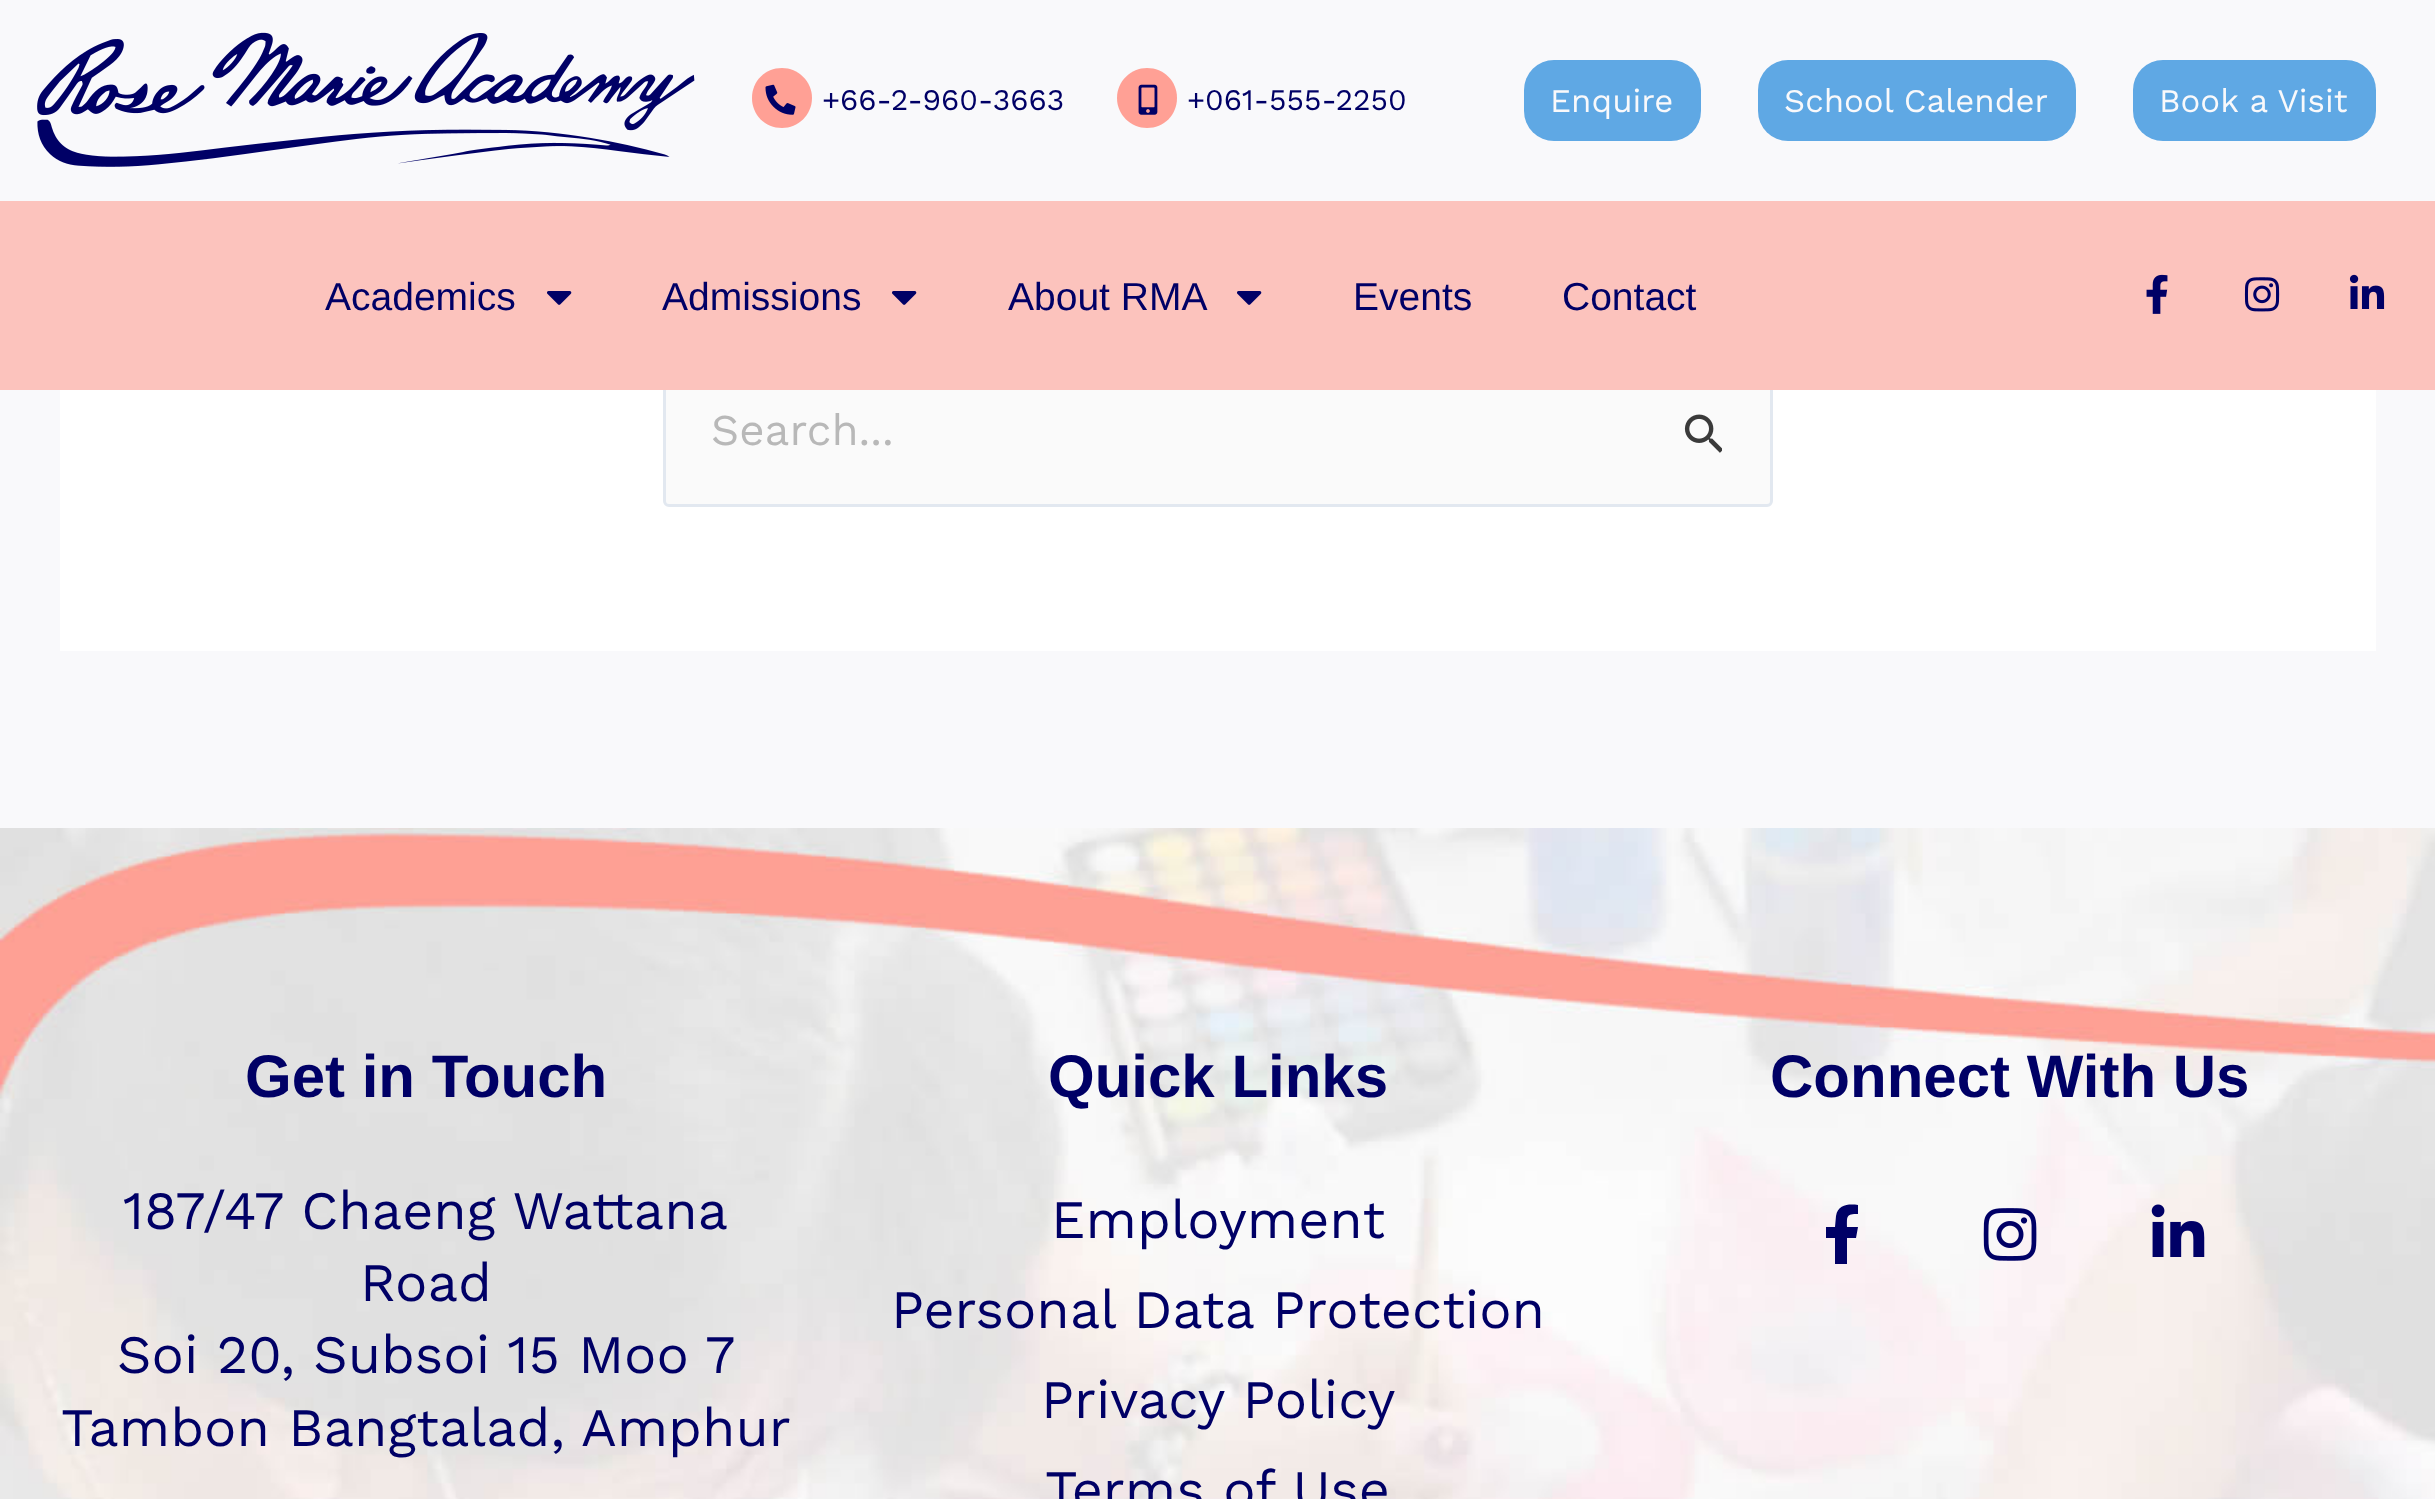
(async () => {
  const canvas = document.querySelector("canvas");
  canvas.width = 2435;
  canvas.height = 1499;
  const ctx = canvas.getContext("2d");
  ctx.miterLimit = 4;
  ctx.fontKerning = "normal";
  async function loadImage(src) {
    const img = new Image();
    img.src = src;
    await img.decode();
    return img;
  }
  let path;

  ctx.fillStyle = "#f9f9fb";
  ctx.fillRect(0, 0, 2435, 1499);
  ctx.drawImage(await loadImage("img/1.png"), 37, 32, 658, 135);
  ctx.fillStyle = "#ffa095";
  path = new Path2D("M782 68C765 68 752 81 752 98C752 115 765 128 782 128C798 128 812 115 812 98C812 81 798 68 782 68Z");
  ctx.fill(path);
  ctx.drawImage(await loadImage("img/2.png"), 765, 84, 31, 31);
  path = new Path2D("M1147 68C1131 68 1117 81 1117 98C1117 115 1131 128 1147 128C1164 128 1177 115 1177 98C1177 81 1164 68 1147 68Z");
  ctx.fill(path);
  ctx.drawImage(await loadImage("img/3.png"), 1138, 84, 20, 31);
  ctx.fillStyle = "#5fa8e4";
  ctx.beginPath();
  ctx.roundRect(1524, 60, 177, 81, 30);
  ctx.fill();
  ctx.beginPath();
  ctx.roundRect(1758, 60, 318, 81, 30);
  ctx.fill();
  ctx.beginPath();
  ctx.roundRect(2133, 60, 243, 81, 30);
  ctx.fill();
  ctx.fillStyle = "#ffffff";
  ctx.fillRect(60, 390, 2316, 261);
  ctx.fillStyle = "#fafafa";
  ctx.beginPath();
  ctx.roundRect(664.5, 355.5, 1107, 150, 4.5);
  ctx.fill();
  ctx.strokeStyle = "#e2e8f0";
  ctx.lineWidth = 3;
  ctx.stroke();
  ctx.fillStyle = "#fcc3bd";
  ctx.fillRect(0, 201, 2435, 189);
  ctx.drawImage(await loadImage("img/4.png"), 547, 291, 25, 14);
  ctx.drawImage(await loadImage("img/4.png"), 892, 291, 25, 14);
  ctx.drawImage(await loadImage("img/4.png"), 1237, 291, 25, 14);
  ctx.drawImage(await loadImage("img/5.png"), 2146, 274, 22, 40);
  ctx.drawImage(await loadImage("img/6.png"), 2244, 277, 36, 35);
  ctx.drawImage(await loadImage("img/7.png"), 2349, 274, 36, 35);
  ctx.drawImage(await loadImage("img/8.png"), 1684, 414, 38, 39);
  ctx.drawImage(await loadImage("img/9.png"), 0, 828, 2435, 671);
  ctx.fillStyle = "#000066";
  path = new Path2D("M1856 1238H1847V1264H1835V1238H1826V1227H1835L1836 1216C1838 1204 1849 1204 1858 1205V1214C1846 1214 1847 1216 1847 1227H1858Z");
  ctx.fill(path);
  ctx.drawImage(await loadImage("img/10.png"), 1983, 1208, 54, 53);
  ctx.drawImage(await loadImage("img/11.png"), 2151, 1204, 54, 53);
  ctx.font = "30px Work Sans";
  ctx.fillText("+66-2-960-3663", 822, 110);
  ctx.fillText("+061-555-2250", 1187, 110);
  ctx.font = "33px Work Sans";
  ctx.fillStyle = "#f9f9fb";
  for (const [text, x, y] of [
    ["Enquire", 1550, 112],
    ["School Calender", 1784, 112],
    ["Book a Visit", 2159, 112],
  ]) {
    ctx.fillText(text, x, y);
  }
  ctx.font = "39px Liberation Sans";
  ctx.fillStyle = "#000066";
  for (const [text, x, y] of [
    ["Academics", 325, 310],
    ["Admissions", 662, 310],
    ["About RMA", 1008, 310],
    ["Events", 1353, 310],
    ["Contact", 1562, 310],
  ]) {
    ctx.fillText(text, x, y);
  }
  ctx.font = "44px Work Sans";
  ctx.fillStyle = "#b8b8b8";
  ctx.fillText("Search...", 711, 445);
  ctx.font = "bold 60px Liberation Sans";
  ctx.fillStyle = "#000066";
  ctx.fillText("Get in Touch", 245, 1097);
  ctx.font = "54px Work Sans";
  for (const [text, x, y] of [
    ["187/47 Chaeng Wattana", 123, 1229],
    ["Road", 360, 1301],
    ["Soi 20, Subsoi 15 Moo 7", 117, 1373],
    ["Tambon Bangtalad, Amphur", 61, 1446],
  ]) {
    ctx.fillText(text, x, y);
  }
  ctx.font = "bold 60px Liberation Sans";
  ctx.fillText("Quick Links", 1048, 1097);
  ctx.font = "54px Work Sans";
  for (const [text, x, y] of [
    ["Employment", 1051, 1238],
    ["Personal Data Protection", 891, 1328],
    ["Privacy Policy", 1041, 1418],
    ["Terms of Use", 1045, 1508],
  ]) {
    ctx.fillText(text, x, y);
  }
  ctx.font = "bold 60px Liberation Sans";
  ctx.fillText("Connect With Us", 1770, 1097);
})();
